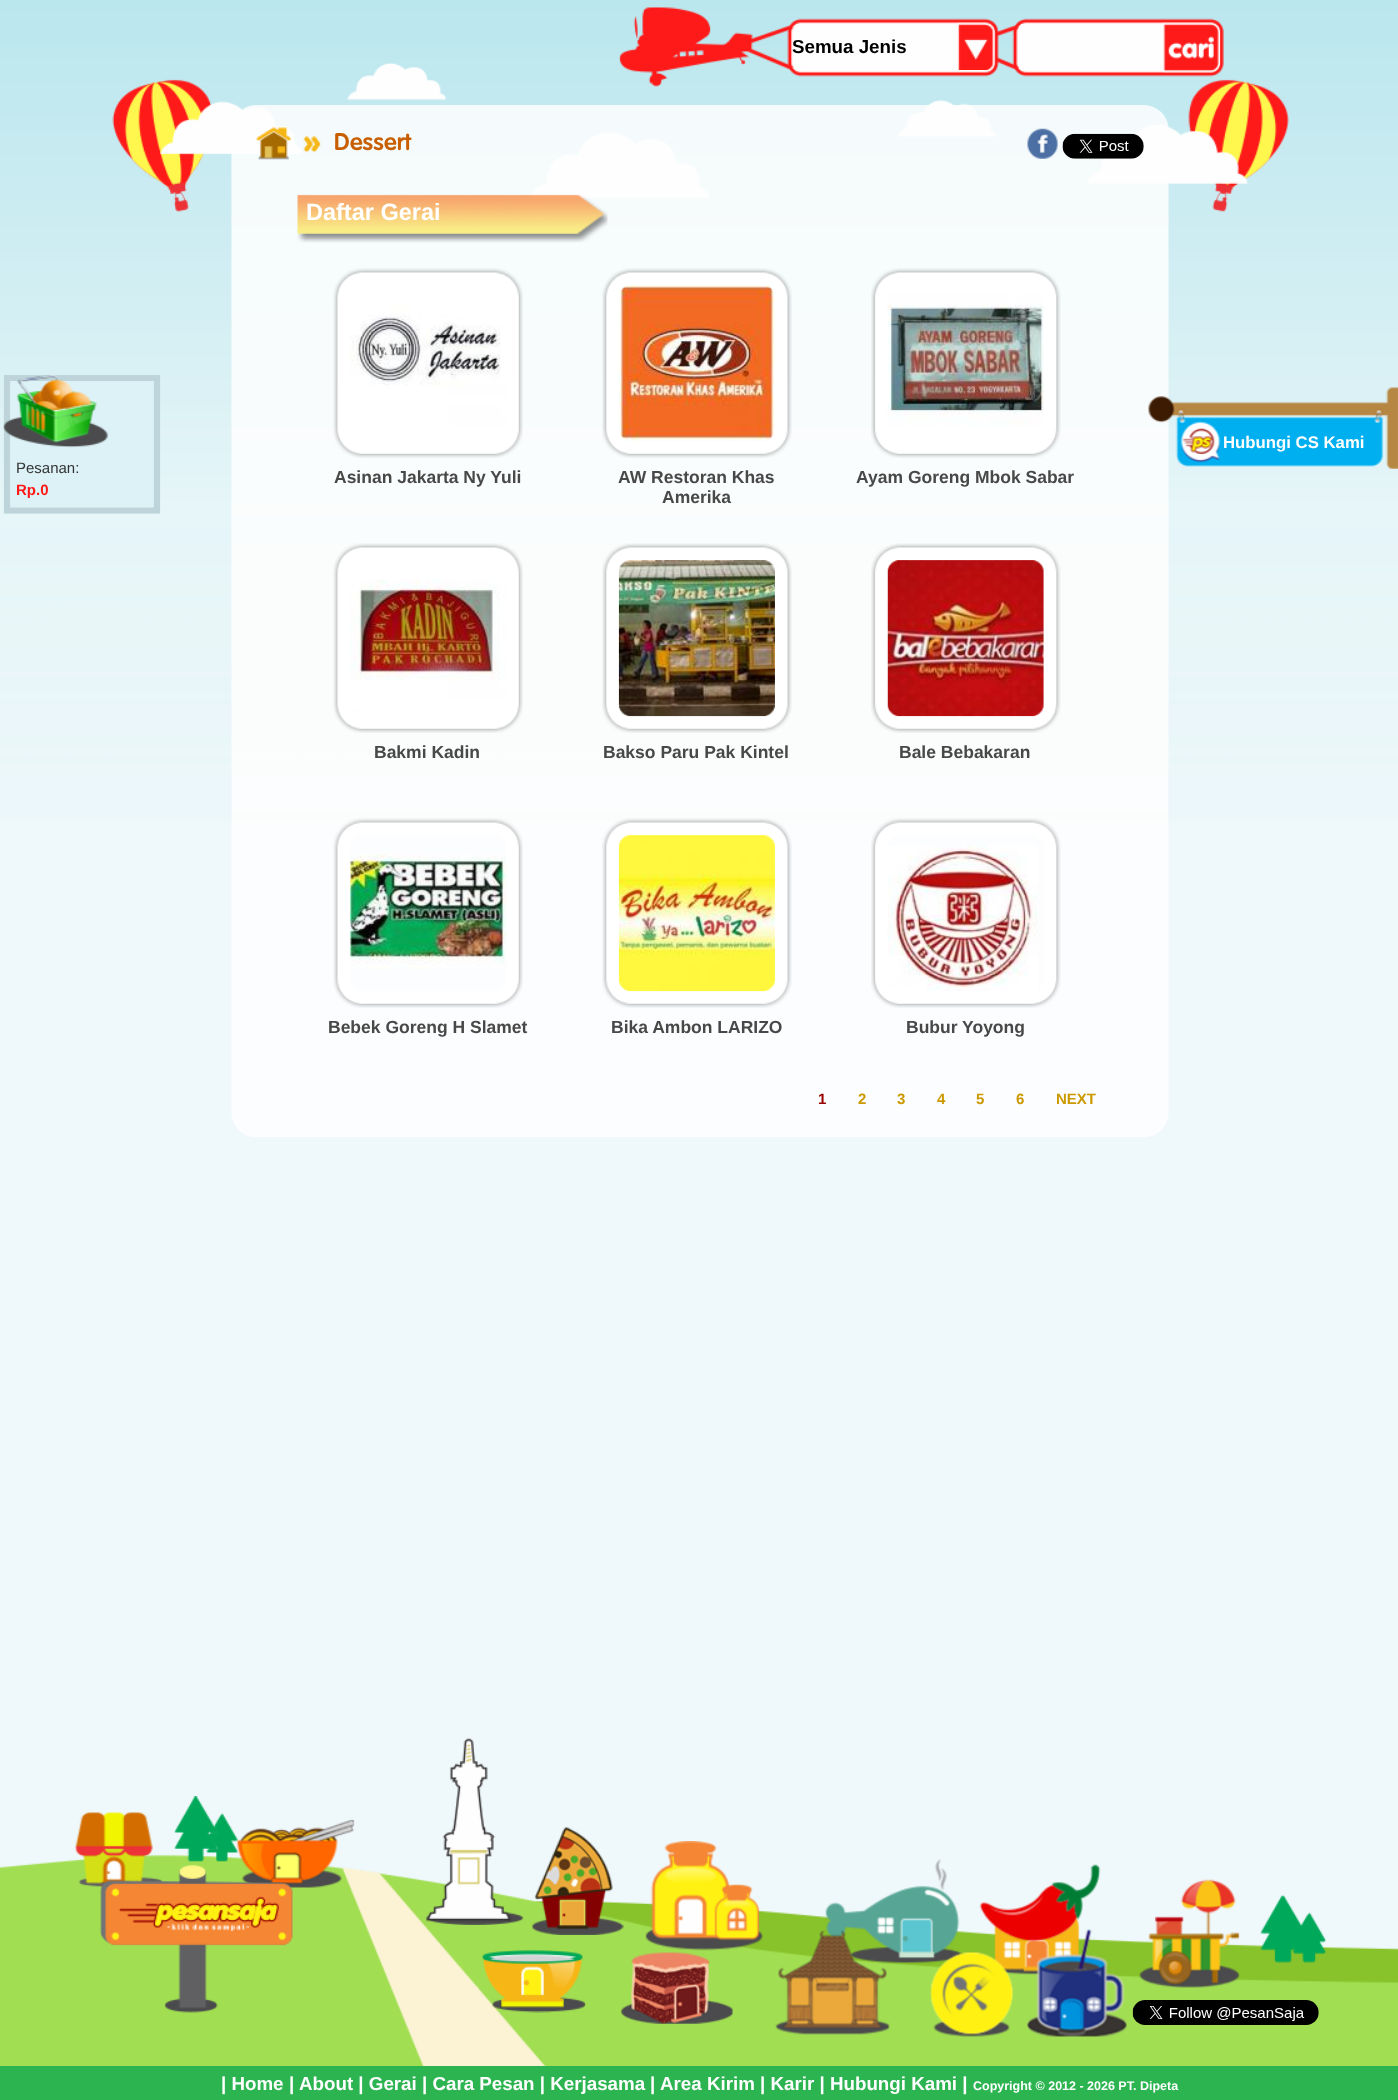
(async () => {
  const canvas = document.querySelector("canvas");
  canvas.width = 1398;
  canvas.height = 2100;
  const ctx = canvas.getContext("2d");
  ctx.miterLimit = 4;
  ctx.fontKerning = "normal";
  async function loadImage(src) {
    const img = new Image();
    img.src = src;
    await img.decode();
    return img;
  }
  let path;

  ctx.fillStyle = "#eff8fa";
  ctx.fillRect(0, 0, 1398, 2100);
  ctx.drawImage(await loadImage("img/1.png"), 0, 0, 1398, 821);
  ctx.drawImage(await loadImage("img/29.png"), 112, 62, 1177, 150);
  ctx.drawImage(await loadImage("img/2.png"), 619, 6, 605, 81);
  ctx.drawImage(await loadImage("img/3.png"), 957, 22, 38, 48);
  ctx.fillStyle = "#ffffff";
  ctx.fillRect(1021, 24, 2, 46);
  ctx.drawImage(await loadImage("img/4.png"), 1162, 22, 58, 51);
  ctx.drawImage(await loadImage("img/5.png"), 231, 105, 938, 1032);
  ctx.drawImage(await loadImage("img/6.png"), 256, 127, 36, 33);
  ctx.drawImage(await loadImage("img/7.png"), 303, 136, 18, 17);
  ctx.drawImage(await loadImage("img/8.png"), 1027, 128, 31, 31);
  ctx.drawImage(await loadImage("img/9.png"), 1062, 133, 82, 26);
  ctx.drawImage(await loadImage("img/10.png"), 297, 194, 311, 49);
  ctx.drawImage(await loadImage("img/12.png"), 350, 285, 156, 156);
  ctx.drawImage(await loadImage("img/11.png"), 333, 268, 190, 190);
  ctx.drawImage(await loadImage("img/14.png"), 618, 285, 157, 157);
  ctx.drawImage(await loadImage("img/13.png"), 602, 268, 190, 190);
  ctx.drawImage(await loadImage("img/16.png"), 887, 285, 157, 156);
  ctx.drawImage(await loadImage("img/15.png"), 871, 268, 190, 190);
  ctx.drawImage(await loadImage("img/18.png"), 350, 560, 156, 156);
  ctx.drawImage(await loadImage("img/17.png"), 333, 543, 190, 190);
  ctx.drawImage(await loadImage("img/20.png"), 618, 560, 157, 157);
  ctx.drawImage(await loadImage("img/19.png"), 602, 543, 190, 190);
  ctx.drawImage(await loadImage("img/22.png"), 887, 560, 157, 157);
  ctx.drawImage(await loadImage("img/21.png"), 871, 543, 190, 190);
  ctx.drawImage(await loadImage("img/24.png"), 350, 854, 157, 115);
  ctx.drawImage(await loadImage("img/23.png"), 333, 818, 190, 190);
  ctx.drawImage(await loadImage("img/26.png"), 618, 835, 157, 157);
  ctx.drawImage(await loadImage("img/25.png"), 602, 818, 190, 190);
  ctx.drawImage(await loadImage("img/28.png"), 887, 845, 151, 146);
  ctx.drawImage(await loadImage("img/27.png"), 871, 818, 190, 190);
  ctx.drawImage(await loadImage("img/30.png"), 1148, 387, 250, 82);
  ctx.fillStyle = "#dcf2f6";
  ctx.beginPath();
  ctx.roundRect(4, 375, 156, 139, 2.5);
  ctx.fill();
  path = new Path2D("M7 378H157V510.5H7Z");
  ctx.strokeStyle = "#bdd5da";
  ctx.lineWidth = 6.2;
  ctx.stroke(path);
  ctx.drawImage(await loadImage("img/31.png"), 3, 375, 105, 73);
  ctx.drawImage(await loadImage("img/47.png"), 0, 1796, 1398, 270);
  ctx.drawImage(await loadImage("img/32.png"), 74, 1812, 89, 76);
  ctx.drawImage(await loadImage("img/33.png"), 236, 1819, 119, 69);
  ctx.drawImage(await loadImage("img/34.png"), 426, 1738, 98, 187);
  ctx.drawImage(await loadImage("img/35.png"), 532, 1827, 92, 108);
  ctx.drawImage(await loadImage("img/36.png"), 645, 1841, 118, 110);
  ctx.drawImage(await loadImage("img/37.png"), 825, 1859, 138, 105);
  ctx.drawImage(await loadImage("img/38.png"), 979, 1864, 122, 111);
  ctx.drawImage(await loadImage("img/39.png"), 100, 1865, 193, 148);
  ctx.drawImage(await loadImage("img/40.png"), 482, 1950, 104, 63);
  ctx.drawImage(await loadImage("img/41.png"), 621, 1952, 112, 72);
  ctx.drawImage(await loadImage("img/42.png"), 775, 1930, 115, 105);
  ctx.drawImage(await loadImage("img/43.png"), 929, 1952, 84, 85);
  ctx.drawImage(await loadImage("img/44.png"), 1026, 1929, 101, 108);
  ctx.drawImage(await loadImage("img/45.png"), 1139, 1879, 101, 109);
  ctx.drawImage(await loadImage("img/46.png"), 1132, 2000, 187, 25);
  ctx.fillStyle = "#2bb450";
  ctx.fillRect(0, 2066, 1398, 34);
  ctx.font = "bold 18.75px Liberation Sans";
  ctx.fillStyle = "#000000";
  ctx.fillText("Semua Jenis", 792, 53);
  ctx.font = "600 23.5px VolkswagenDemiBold";
  ctx.fillStyle = "#c85e00";
  ctx.fillText("Dessert", 334, 150);
  ctx.font = "bold 23.5px Liberation Sans";
  ctx.fillStyle = "#ffffff";
  ctx.fillText("Daftar Gerai", 306, 220);
  ctx.font = "bold 17.5px Liberation Sans";
  ctx.fillStyle = "#484848";
  for (const [text, x, y] of [
    ["Asinan Jakarta Ny Yuli", 334, 483],
    ["AW Restoran Khas", 618, 483],
    ["Amerika", 662, 503],
    ["Ayam Goreng Mbok Sabar", 856, 483],
    ["Bakmi Kadin", 374, 758],
    ["Bakso Paru Pak Kintel", 603, 758],
    ["Bale Bebakaran", 899, 758],
    ["Bebek Goreng H Slamet", 328, 1033],
    ["Bika Ambon LARIZO", 611, 1033],
    ["Bubur Yoyong", 906, 1033],
  ]) {
    ctx.fillText(text, x, y);
  }
  ctx.font = "bold 15px Liberation Sans";
  ctx.fillStyle = "#990000";
  ctx.fillText("1", 818, 1104);
  ctx.fillStyle = "#cc9900";
  for (const [text, x, y] of [
    ["2", 858, 1104],
    ["3", 897, 1104],
    ["4", 937, 1104],
    ["5", 976, 1104],
    ["6", 1016, 1104],
    ["NEXT", 1056, 1104],
  ]) {
    ctx.fillText(text, x, y);
  }
  ctx.font = "bold 16.75px Liberation Sans";
  ctx.fillStyle = "#ffffff";
  ctx.fillText("Hubungi CS Kami", 1223, 448);
  ctx.font = "15px Liberation Sans";
  ctx.fillStyle = "#333333";
  ctx.fillText("Pesanan:", 16, 473);
  ctx.font = "bold 15px Liberation Sans";
  ctx.fillStyle = "#ff1a1a";
  ctx.fillText("Rp.0", 16, 495);
  ctx.font = "bold 18.75px Liberation Sans";
  ctx.fillStyle = "#ffffff";
  for (const [text, x, y] of [
    ["| Home", 221, 2090],
    ["|", 289, 2090],
    ["About | Gerai | Cara Pesan | Kerjasama", 299, 2090],
    ["|", 650, 2090],
    ["Area Kirim | Karir | Hubungi Kami |", 660, 2090],
  ]) {
    ctx.fillText(text, x, y);
  }
  ctx.font = "bold 12.5px Liberation Sans";
  ctx.fillText("Copyright © 2012 - 2026 PT. Dipeta", 973, 2090);
})();
